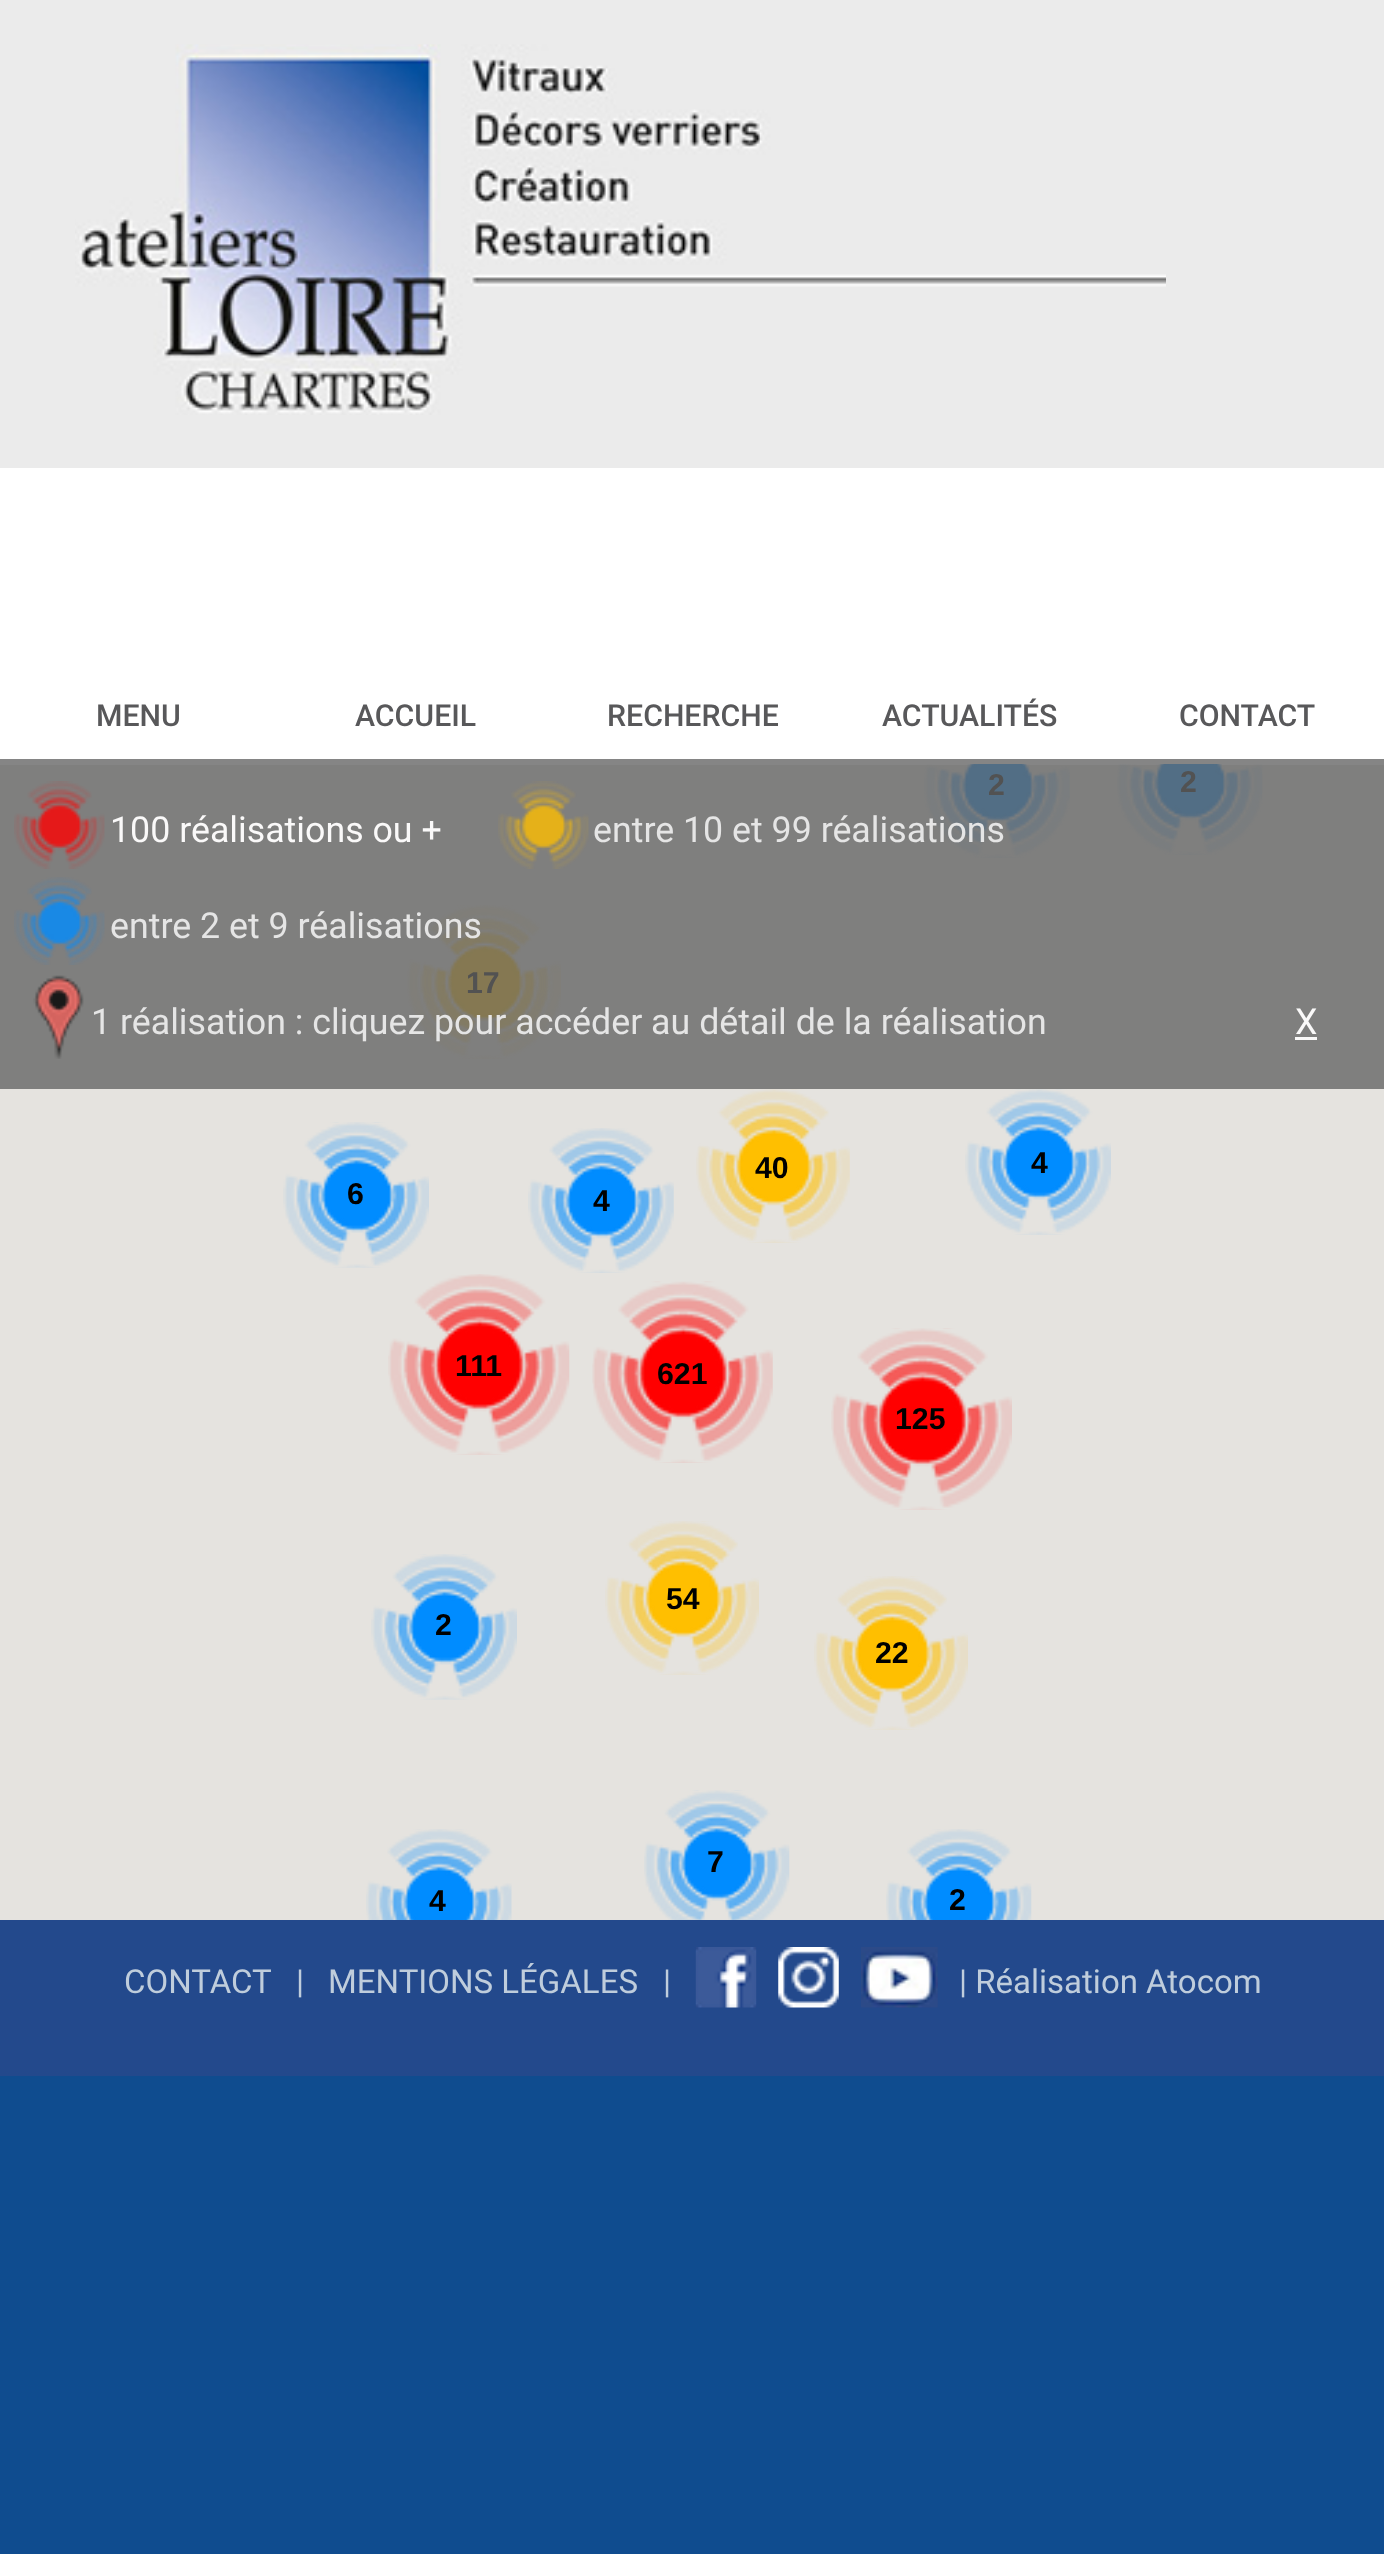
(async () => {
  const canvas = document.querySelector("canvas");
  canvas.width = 1384;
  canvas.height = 2554;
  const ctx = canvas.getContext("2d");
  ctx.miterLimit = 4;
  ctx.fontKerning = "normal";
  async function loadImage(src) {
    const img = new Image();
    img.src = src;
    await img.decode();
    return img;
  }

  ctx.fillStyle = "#0f4c8f";
  ctx.fillRect(0, 0, 1384, 2554);
  ctx.fillStyle = "#ebebeb";
  ctx.fillRect(0, 0, 1384, 468);
  ctx.drawImage(await loadImage("img/1.png"), 75, 44, 1091, 371);
  for (const [x, y, w, h, color] of [
    [0, 468, 1384, 291, "#ffffff"],
    [0, 759, 1384, 6, "#858585"],
    [0, 1089, 1384, 831, "#e5e3df"],
    [0, 765, 1384, 324, "#7f7f7e"],
  ]) {
    ctx.fillStyle = color;
    ctx.fillRect(x, y, w, h);
  }
  ctx.drawImage(await loadImage("img/2.png"), 924, 764, 146, 94);
  ctx.drawImage(await loadImage("img/3.png"), 1117, 764, 146, 91);
  ctx.drawImage(await loadImage("img/4.png"), 407, 905, 154, 154);
  ctx.drawImage(await loadImage("img/5.png"), 696, 1089, 154, 154);
  ctx.drawImage(await loadImage("img/6.png"), 965, 1089, 146, 146);
  ctx.drawImage(await loadImage("img/7.png"), 283, 1122, 146, 146);
  ctx.drawImage(await loadImage("img/8.png"), 528, 1128, 146, 145);
  ctx.drawImage(await loadImage("img/9.png"), 388, 1274, 182, 181);
  ctx.drawImage(await loadImage("img/10.png"), 592, 1281, 181, 182);
  ctx.drawImage(await loadImage("img/11.png"), 831, 1328, 181, 182);
  ctx.drawImage(await loadImage("img/12.png"), 605, 1521, 154, 154);
  ctx.drawImage(await loadImage("img/13.png"), 371, 1554, 146, 146);
  ctx.drawImage(await loadImage("img/14.png"), 814, 1576, 154, 154);
  ctx.drawImage(await loadImage("img/15.png"), 644, 1790, 146, 130);
  ctx.drawImage(await loadImage("img/16.png"), 366, 1829, 146, 91);
  ctx.drawImage(await loadImage("img/17.png"), 886, 1829, 146, 91);
  ctx.drawImage(await loadImage("img/18.png"), 14, 781, 91, 88);
  ctx.drawImage(await loadImage("img/19.png"), 498, 781, 91, 88);
  ctx.drawImage(await loadImage("img/20.png"), 14, 877, 91, 88);
  ctx.drawImage(await loadImage("img/21.png"), 33, 975, 51, 84);
  ctx.fillStyle = "#faf9f9";
  ctx.fillRect(1295, 1037, 22, 3);
  ctx.fillStyle = "#23498c";
  ctx.fillRect(0, 1920, 1384, 156);
  ctx.drawImage(await loadImage("img/22.png"), 695, 1947, 62, 61);
  ctx.drawImage(await loadImage("img/23.png"), 778, 1947, 61, 61);
  ctx.drawImage(await loadImage("img/24.png"), 861, 1947, 77, 61);
  ctx.font = "500 30.25px Roboto";
  ctx.fillStyle = "#58585a";
  for (const [text, x, y] of [
    ["MENU", 96, 726],
    ["ACCUEIL", 355, 726],
    ["RECHERCHE", 607, 726],
    ["ACTUALITÉS", 882, 726],
    ["CONTACT", 1179, 726],
  ]) {
    ctx.fillText(text, x, y);
  }
  ctx.font = "bold 30.25px Liberation Sans";
  ctx.fillStyle = "#525252";
  for (const [text, x, y] of [
    ["2", 988, 795],
    ["2", 1180, 792],
    ["17", 466, 993],
  ]) {
    ctx.fillText(text, x, y);
  }
  ctx.fillStyle = "#000000";
  for (const [text, x, y] of [
    ["40", 755, 1178],
    ["4", 1031, 1173],
    ["6", 347, 1204],
    ["4", 593, 1211],
    ["111", 455, 1376],
    ["621", 657, 1384],
    ["125", 895, 1429],
    ["54", 666, 1609],
    ["2", 435, 1635],
    ["22", 875, 1663],
    ["7", 707, 1872],
    ["4", 429, 1911],
    ["2", 949, 1910],
  ]) {
    ctx.fillText(text, x, y);
  }
  ctx.font = "35.75px Roboto";
  ctx.fillStyle = "#faf9f9";
  ctx.fillText("100 réalisations ou +", 110, 842);
  ctx.fillStyle = "#e5e5e5";
  for (const [text, x, y] of [
    ["entre 10 et 99 réalisations", 593, 842],
    ["entre 2 et 9 réalisations", 110, 938],
    ["1 réalisation : cliquez pour accéder au détail de la réalisation", 91, 1034],
  ]) {
    ctx.fillText(text, x, y);
  }
  ctx.fillStyle = "#faf9f9";
  ctx.fillText("X", 1295, 1034);
  ctx.font = "33px Roboto";
  ctx.fillStyle = "#bfcddc";
  for (const [text, x, y] of [
    ["CONTACT", 124, 1993],
    ["|", 296, 1993],
    ["MENTIONS LÉGALES", 328, 1993],
    ["|", 663, 1993],
    ["| Réalisation Atocom", 959, 1993],
  ]) {
    ctx.fillText(text, x, y);
  }
})();
